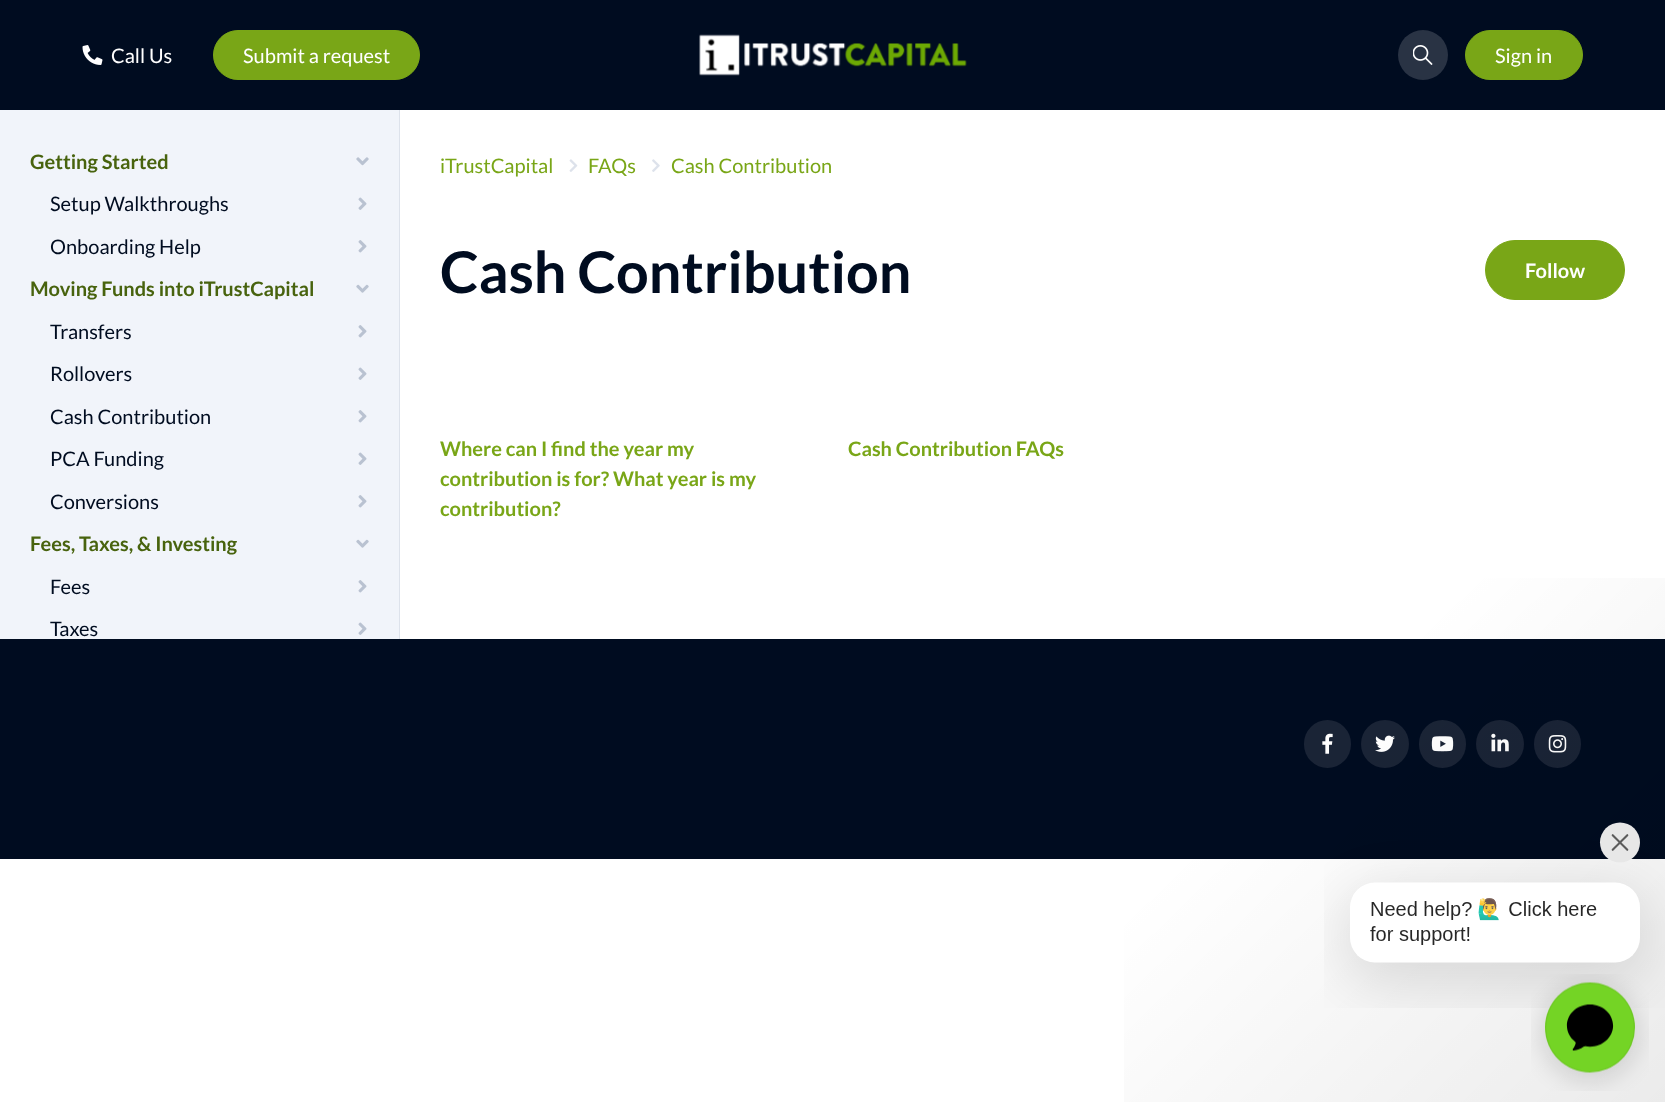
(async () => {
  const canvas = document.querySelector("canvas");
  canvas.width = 1665;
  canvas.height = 1102;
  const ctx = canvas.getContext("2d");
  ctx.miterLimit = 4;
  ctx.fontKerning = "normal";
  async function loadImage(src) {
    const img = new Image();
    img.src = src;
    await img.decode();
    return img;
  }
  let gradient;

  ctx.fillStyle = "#ffffff";
  ctx.fillRect(0, 0, 1665, 1102);
  ctx.fillStyle = "#000c20";
  ctx.fillRect(0, 0, 1665, 110);
  ctx.drawImage(await loadImage("img/1.png"), 82, 45, 21, 20);
  ctx.fillStyle = "#79a617";
  ctx.beginPath();
  ctx.roundRect(213.5, 30.5, 206, 49, 24.5);
  ctx.fill();
  ctx.strokeStyle = "#79a617";
  ctx.stroke();
  ctx.drawImage(await loadImage("img/2.png"), 699, 34, 268, 42);
  ctx.fillStyle = "#293344";
  ctx.beginPath();
  ctx.arc(1423, 55, 25, 0, Math.PI * 2);
  ctx.fill();
  ctx.drawImage(await loadImage("img/3.png"), 1413, 45, 20, 20);
  ctx.fillStyle = "#79a617";
  ctx.beginPath();
  ctx.roundRect(1465.5, 30.5, 117, 49, 24.5);
  ctx.fill();
  ctx.stroke();
  ctx.fillStyle = "#f1f4fa";
  ctx.fillRect(0, 110, 399, 529);
  ctx.fillStyle = "#dde2eb";
  ctx.fillRect(399, 110, 1, 529);
  ctx.drawImage(await loadImage("img/4.png"), 356, 157, 13, 9);
  ctx.drawImage(await loadImage("img/5.png"), 358, 197, 9, 13);
  ctx.drawImage(await loadImage("img/6.png"), 358, 240, 9, 13);
  ctx.drawImage(await loadImage("img/7.png"), 356, 284, 13, 9);
  ctx.drawImage(await loadImage("img/6.png"), 358, 325, 9, 13);
  ctx.drawImage(await loadImage("img/5.png"), 358, 367, 9, 13);
  ctx.drawImage(await loadImage("img/6.png"), 358, 410, 9, 13);
  ctx.drawImage(await loadImage("img/5.png"), 358, 452, 9, 13);
  ctx.drawImage(await loadImage("img/6.png"), 358, 495, 9, 13);
  ctx.drawImage(await loadImage("img/7.png"), 356, 539, 13, 9);
  ctx.drawImage(await loadImage("img/6.png"), 358, 580, 9, 13);
  ctx.drawImage(await loadImage("img/5.png"), 358, 622, 9, 13);
  ctx.drawImage(await loadImage("img/8.png"), 569, 159, 9, 13);
  ctx.drawImage(await loadImage("img/9.png"), 652, 159, 8, 13);
  ctx.fillStyle = "#79a617";
  ctx.beginPath();
  ctx.roundRect(1485.5, 240.5, 139, 59, 29.5);
  ctx.fill();
  ctx.stroke();
  ctx.fillStyle = "#000c20";
  ctx.fillRect(0, 639, 1665, 220);
  ctx.fillStyle = "#1a2436";
  ctx.beginPath();
  ctx.roundRect(1304, 720, 47, 48, 23.5);
  ctx.fill();
  ctx.drawImage(await loadImage("img/10.png"), 1322, 733, 11, 21);
  ctx.beginPath();
  ctx.arc(1385, 744, 24, 0, Math.PI * 2);
  ctx.fill();
  ctx.drawImage(await loadImage("img/11.png"), 1375, 735, 20, 17);
  ctx.beginPath();
  ctx.roundRect(1419, 720, 47, 48, 23.5);
  ctx.fill();
  ctx.drawImage(await loadImage("img/12.png"), 1431, 736, 23, 16);
  ctx.beginPath();
  ctx.arc(1500, 744, 24, 0, Math.PI * 2);
  ctx.fill();
  ctx.drawImage(await loadImage("img/13.png"), 1491, 733, 18, 19);
  ctx.beginPath();
  ctx.roundRect(1534, 720, 47, 48, 23.5);
  ctx.fill();
  ctx.drawImage(await loadImage("img/14.png"), 1548, 735, 19, 18);
  gradient = ctx.createLinearGradient(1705, 1063, 831, 160);
  gradient.addColorStop(0, "rgba(0, 0, 0, 0.08)");
  gradient.addColorStop(0.41, "rgba(0, 0, 0, 0)");
  ctx.fillStyle = gradient;
  ctx.fillRect(1124, 578, 541, 524);
  ctx.drawImage(await loadImage("img/15.png"), 1324, 822, 341, 186);
  ctx.drawImage(await loadImage("img/16.png"), 1531, 974, 118, 117);
  ctx.font = "20px Lato";
  ctx.fillStyle = "#ffffff";
  for (const [text, x, y] of [
    ["Call Us", 111, 63],
    ["Submit a request", 243, 63],
    ["Sign in", 1495, 63],
  ]) {
    ctx.fillText(text, x, y);
  }
  ctx.font = "bold 20px Lato";
  ctx.fillStyle = "#48630e";
  ctx.fillText("Getting Started", 30, 169);
  ctx.font = "20px Lato";
  ctx.fillStyle = "#000c20";
  ctx.fillText("Setup Walkthroughs", 50, 211);
  ctx.fillText("Onboarding Help", 50, 254);
  ctx.font = "bold 20px Lato";
  ctx.fillStyle = "#48630e";
  ctx.fillText("Moving Funds into iTrustCapital", 30, 296);
  ctx.font = "20px Lato";
  ctx.fillStyle = "#000c20";
  for (const [text, x, y] of [
    ["Transfers", 50, 339],
    ["Rollovers", 50, 381],
    ["Cash Contribution", 50, 424],
    ["PCA Funding", 50, 466],
    ["Conversions", 50, 509],
  ]) {
    ctx.fillText(text, x, y);
  }
  ctx.font = "bold 20px Lato";
  ctx.fillStyle = "#48630e";
  ctx.fillText("Fees, Taxes, & Investing", 30, 551);
  ctx.font = "20px Lato";
  ctx.fillStyle = "#000c20";
  ctx.fillText("Fees", 50, 594);
  ctx.fillText("Taxes", 50, 636);
  ctx.fillStyle = "#79a617";
  for (const [text, x, y] of [
    ["iTrustCapital", 440, 173],
    ["FAQs", 588, 173],
    ["Cash Contribution", 671, 173],
  ]) {
    ctx.fillText(text, x, y);
  }
  ctx.font = "bold 57.5px Lato";
  ctx.fillStyle = "#000c20";
  ctx.fillText("Cash Contribution", 440, 293);
  ctx.font = "bold 20px Lato";
  ctx.fillStyle = "#ffffff";
  ctx.fillText("Follow", 1525, 278);
  ctx.fillStyle = "#79a617";
  for (const [text, x, y] of [
    ["Where can I find the year my", 440, 456],
    ["contribution is for? What year is my", 440, 486],
    ["contribution?", 440, 516],
    ["Cash Contribution FAQs", 848, 456],
  ]) {
    ctx.fillText(text, x, y);
  }
})();
